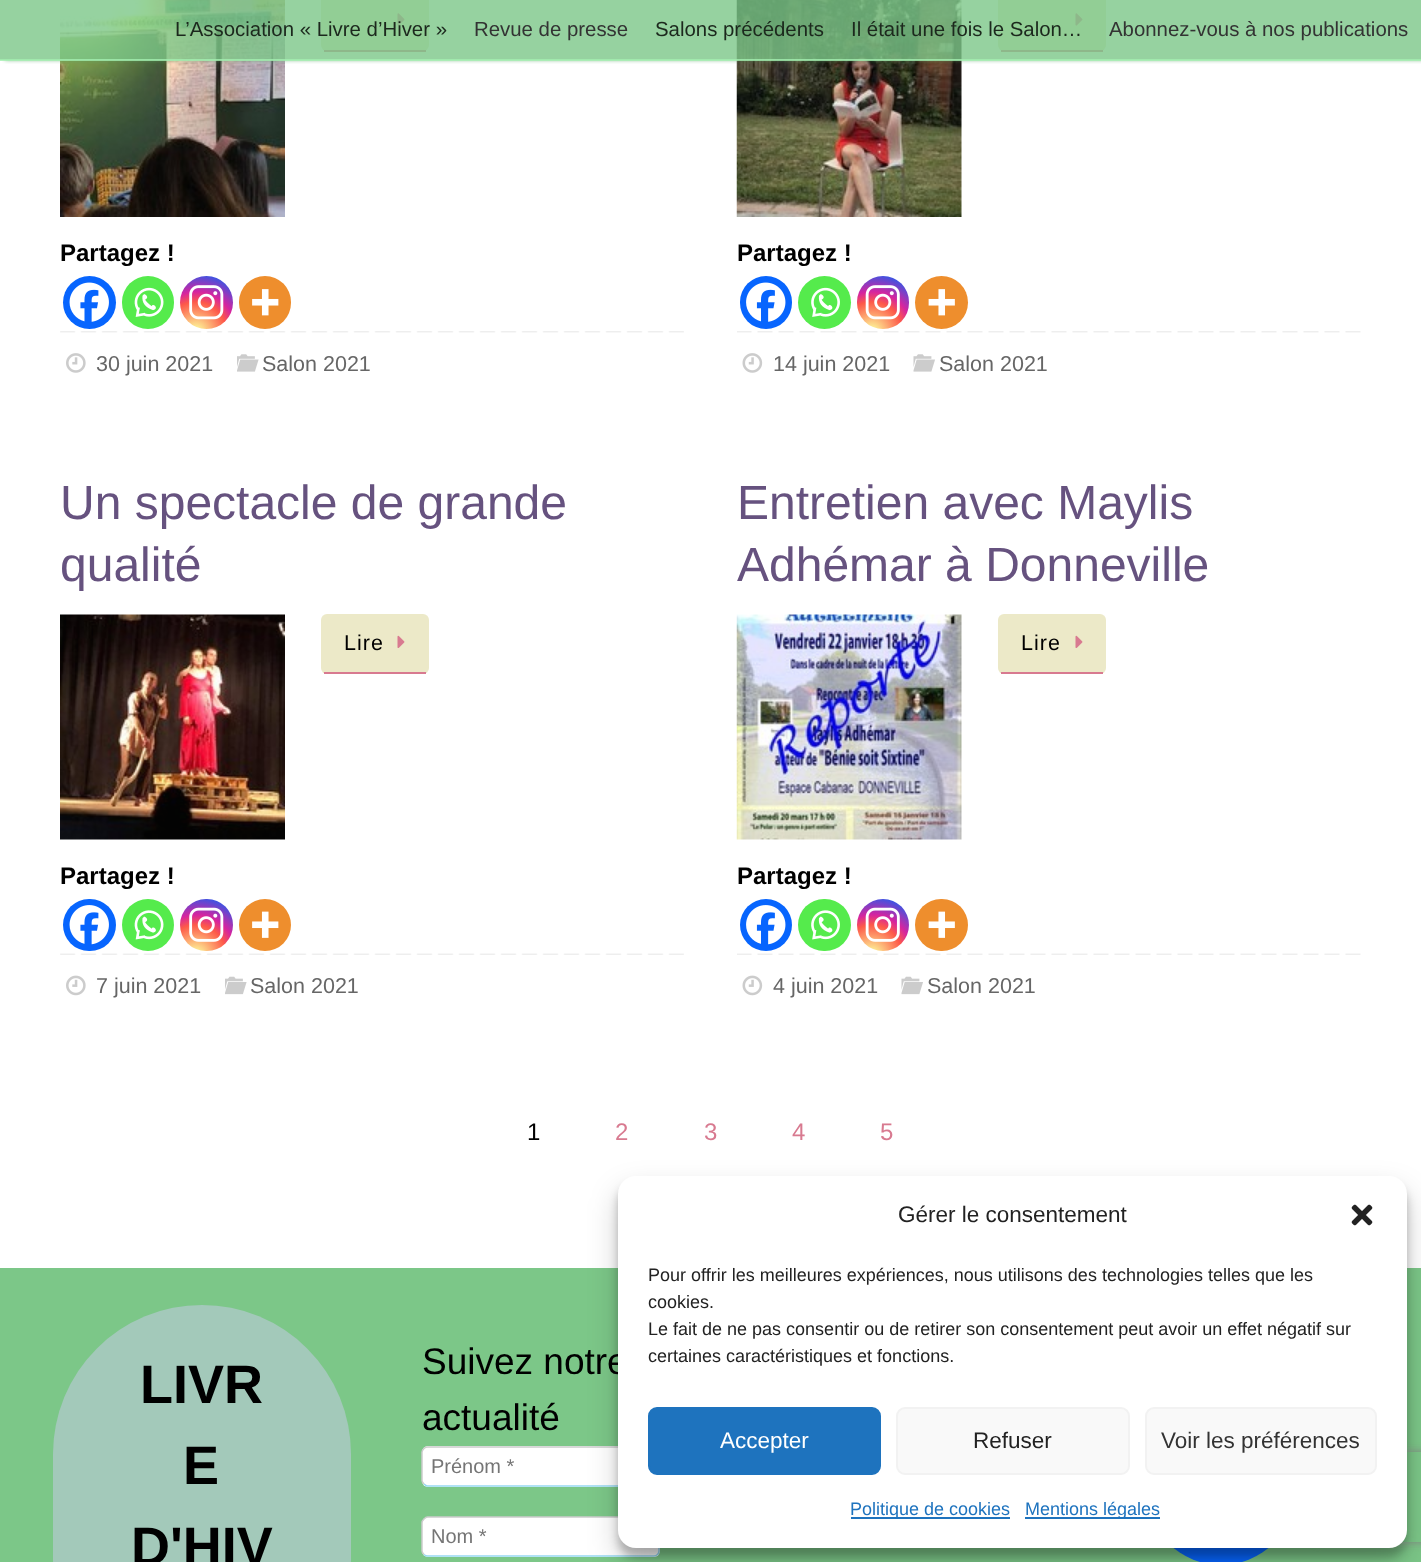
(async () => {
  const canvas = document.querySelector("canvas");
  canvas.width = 1421;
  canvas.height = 1562;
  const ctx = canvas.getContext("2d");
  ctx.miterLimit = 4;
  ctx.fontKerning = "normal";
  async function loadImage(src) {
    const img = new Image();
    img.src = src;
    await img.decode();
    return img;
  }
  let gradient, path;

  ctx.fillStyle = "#ffffff";
  ctx.fillRect(0, 0, 1421, 1562);
  ctx.drawImage(await loadImage("img/1.png"), 60, 0, 225, 217);
  ctx.fillStyle = "#ece9c8";
  ctx.beginPath();
  ctx.roundRect(321, -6, 108, 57, 6);
  ctx.fill();
  ctx.fillStyle = "#d87a90";
  ctx.fillRect(324, 50, 102, 2);
  ctx.drawImage(await loadImage("img/2.png"), 397, 13, 8, 13);
  ctx.drawImage(await loadImage("img/10.png"), 736, 0, 226, 217);
  ctx.fillStyle = "#ece9c8";
  ctx.beginPath();
  ctx.roundRect(998, -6, 108, 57, 6);
  ctx.fill();
  ctx.fillStyle = "#d87a90";
  ctx.fillRect(1001, 50, 102, 2);
  ctx.drawImage(await loadImage("img/2.png"), 1075, 13, 8, 13);
  ctx.save();
  ctx.beginPath();
  ctx.rect(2, 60, 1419, 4);
  ctx.clip();
  ctx.fillStyle = "rgba(84, 159, 96, 0.8)";
  ctx.filter = "blur(2px)";
  ctx.beginPath();
  ctx.rect(5, 0, 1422, 60);
  ctx.fill();
  ctx.filter = "none";
  ctx.restore();
  ctx.fillStyle = "rgba(124, 199, 136, 0.8)";
  ctx.fillRect(0, 0, 1421, 60);
  ctx.fillStyle = "rgba(164, 239, 176, 0.8)";
  ctx.fillRect(0, 59, 1421, 2);
  ctx.fillStyle = "#0765fe";
  ctx.beginPath();
  ctx.arc(89.5, 302.5, 26.5, 0, Math.PI * 2);
  ctx.fill();
  ctx.drawImage(await loadImage("img/3.png"), 69, 282, 40, 40);
  ctx.fillStyle = "#55eb4c";
  ctx.beginPath();
  ctx.roundRect(122, 276, 52, 53, 26);
  ctx.fill();
  ctx.drawImage(await loadImage("img/4.png"), 134, 287, 30, 30);
  gradient = ctx.createRadialGradient(196, 332, 0, 196, 332, 67);
  gradient.addColorStop(0, "#fdf497");
  gradient.addColorStop(0.05, "#fdf497");
  gradient.addColorStop(0.45, "#fd5949");
  gradient.addColorStop(0.6, "#d6249f");
  gradient.addColorStop(0.9, "#285aeb");
  ctx.fillStyle = gradient;
  ctx.beginPath();
  ctx.arc(206.5, 302.5, 26.5, 0, Math.PI * 2);
  ctx.fill();
  ctx.drawImage(await loadImage("img/5.png"), 189, 285, 35, 35);
  ctx.fillStyle = "#ee8e2d";
  ctx.beginPath();
  ctx.roundRect(239, 276, 52, 53, 26);
  ctx.fill();
  ctx.drawImage(await loadImage("img/6.png"), 252, 289, 27, 27);
  ctx.drawImage(await loadImage("img/7.png"), 60, 331, 624, 2);
  ctx.drawImage(await loadImage("img/8.png"), 66, 353, 20, 20);
  ctx.drawImage(await loadImage("img/9.png"), 237, 354, 22, 18);
  ctx.fillStyle = "#0765fe";
  ctx.beginPath();
  ctx.roundRect(740, 276, 52, 53, 26);
  ctx.fill();
  ctx.drawImage(await loadImage("img/11.png"), 746, 282, 40, 40);
  ctx.fillStyle = "#55eb4c";
  ctx.beginPath();
  ctx.arc(824.5, 302.5, 26.5, 0, Math.PI * 2);
  ctx.fill();
  ctx.drawImage(await loadImage("img/12.png"), 811, 287, 29, 30);
  gradient = ctx.createRadialGradient(872, 332, 0, 872, 332, 67);
  gradient.addColorStop(0, "#fdf497");
  gradient.addColorStop(0.05, "#fdf497");
  gradient.addColorStop(0.45, "#fd5949");
  gradient.addColorStop(0.6, "#d6249f");
  gradient.addColorStop(0.9, "#285aeb");
  ctx.fillStyle = gradient;
  ctx.beginPath();
  ctx.roundRect(857, 276, 52, 53, 26);
  ctx.fill();
  ctx.drawImage(await loadImage("img/13.png"), 865, 285, 35, 35);
  ctx.fillStyle = "#ee8e2d";
  ctx.beginPath();
  ctx.arc(941.5, 302.5, 26.5, 0, Math.PI * 2);
  ctx.fill();
  ctx.drawImage(await loadImage("img/14.png"), 928, 289, 27, 27);
  ctx.drawImage(await loadImage("img/15.png"), 737, 331, 624, 2);
  ctx.drawImage(await loadImage("img/16.png"), 742, 353, 21, 20);
  ctx.drawImage(await loadImage("img/17.png"), 913, 354, 22, 18);
  ctx.drawImage(await loadImage("img/18.png"), 60, 614, 225, 226);
  ctx.fillStyle = "#ece9c8";
  ctx.beginPath();
  ctx.roundRect(321, 614, 108, 60, 6);
  ctx.fill();
  ctx.fillStyle = "#d87a90";
  ctx.fillRect(324, 672, 102, 2);
  ctx.drawImage(await loadImage("img/19.png"), 397, 635, 8, 13);
  ctx.fillStyle = "#0765fe";
  ctx.beginPath();
  ctx.roundRect(63, 899, 53, 52, 26);
  ctx.fill();
  ctx.drawImage(await loadImage("img/20.png"), 69, 905, 40, 40);
  ctx.fillStyle = "#55eb4c";
  ctx.beginPath();
  ctx.arc(148, 925, 26, 0, Math.PI * 2);
  ctx.fill();
  ctx.drawImage(await loadImage("img/21.png"), 134, 910, 30, 30);
  gradient = ctx.createRadialGradient(196, 955, 0, 196, 955, 67);
  gradient.addColorStop(0, "#fdf497");
  gradient.addColorStop(0.05, "#fdf497");
  gradient.addColorStop(0.45, "#fd5949");
  gradient.addColorStop(0.6, "#d6249f");
  gradient.addColorStop(0.9, "#285aeb");
  ctx.fillStyle = gradient;
  ctx.beginPath();
  ctx.roundRect(180, 899, 53, 52, 26);
  ctx.fill();
  ctx.drawImage(await loadImage("img/22.png"), 189, 907, 35, 35);
  ctx.fillStyle = "#ee8e2d";
  ctx.beginPath();
  ctx.arc(265, 925, 26, 0, Math.PI * 2);
  ctx.fill();
  ctx.drawImage(await loadImage("img/23.png"), 252, 911, 27, 27);
  ctx.drawImage(await loadImage("img/24.png"), 60, 953, 624, 2);
  ctx.drawImage(await loadImage("img/25.png"), 66, 975, 20, 21);
  ctx.drawImage(await loadImage("img/26.png"), 225, 976, 22, 19);
  ctx.drawImage(await loadImage("img/27.png"), 736, 614, 226, 226);
  ctx.fillStyle = "#ece9c8";
  ctx.beginPath();
  ctx.roundRect(998, 614, 108, 60, 6);
  ctx.fill();
  ctx.fillStyle = "#d87a90";
  ctx.fillRect(1001, 672, 102, 2);
  ctx.drawImage(await loadImage("img/19.png"), 1075, 635, 8, 13);
  ctx.fillStyle = "#0765fe";
  ctx.beginPath();
  ctx.arc(766, 925, 26, 0, Math.PI * 2);
  ctx.fill();
  ctx.drawImage(await loadImage("img/28.png"), 746, 905, 40, 40);
  ctx.fillStyle = "#55eb4c";
  ctx.beginPath();
  ctx.roundRect(798, 899, 53, 52, 26);
  ctx.fill();
  ctx.drawImage(await loadImage("img/29.png"), 811, 910, 29, 30);
  gradient = ctx.createRadialGradient(872, 955, 0, 872, 955, 67);
  gradient.addColorStop(0, "#fdf497");
  gradient.addColorStop(0.05, "#fdf497");
  gradient.addColorStop(0.45, "#fd5949");
  gradient.addColorStop(0.6, "#d6249f");
  gradient.addColorStop(0.9, "#285aeb");
  ctx.fillStyle = gradient;
  ctx.beginPath();
  ctx.arc(883, 925, 26, 0, Math.PI * 2);
  ctx.fill();
  ctx.drawImage(await loadImage("img/30.png"), 865, 907, 35, 35);
  ctx.fillStyle = "#ee8e2d";
  ctx.beginPath();
  ctx.roundRect(915, 899, 53, 52, 26);
  ctx.fill();
  ctx.drawImage(await loadImage("img/31.png"), 928, 911, 27, 27);
  ctx.drawImage(await loadImage("img/32.png"), 737, 953, 624, 2);
  ctx.drawImage(await loadImage("img/33.png"), 742, 975, 21, 21);
  ctx.drawImage(await loadImage("img/34.png"), 901, 976, 22, 19);
  ctx.fillStyle = "#7cc788";
  ctx.fillRect(0, 1268, 1421, 294);
  ctx.fillStyle = "#a3c9ba";
  ctx.beginPath();
  ctx.roundRect(53, 1305, 298, 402, 149);
  ctx.fill();
  ctx.fillStyle = "#ffffff";
  ctx.beginPath();
  ctx.roundRect(422, 1446, 238, 41, 6);
  ctx.fill();
  path = new Path2D("M657.5 1448.5C658.5 1449.5 659 1450.5 659 1452V1480.5C659 1482 658.5 1483 657.5 1484C656.5 1485 655.5 1486 654 1486H427.5C426 1486 425 1485 424 1484");
  ctx.strokeStyle = "#96d9f2";
  ctx.lineWidth = 1.5;
  ctx.stroke(path);
  path = new Path2D("M424 1484C423 1483 422 1482 422 1480.5V1452C422 1450.5 423 1449.5 424 1448.5C425 1447.5 426 1447 427.5 1447H654C655.5 1447 656.5 1447.5 657.5 1448.5");
  ctx.strokeStyle = "#cccccc";
  ctx.stroke(path);
  ctx.beginPath();
  ctx.roundRect(422, 1517, 238, 40, 6);
  ctx.fill();
  path = new Path2D("M657.5 1519C658.5 1520 659 1521 659 1522.5V1551C659 1552.5 658.5 1553.5 657.5 1554.5C656.5 1555.5 655.5 1556 654 1556H427.5C426 1556 425 1555.5 424 1554.5");
  ctx.strokeStyle = "#96d9f2";
  ctx.stroke(path);
  path = new Path2D("M424 1554.5C423 1553.5 422 1552.5 422 1551V1522.5C422 1521 423 1520 424 1519C425 1518 426 1517 427.5 1517H654C655.5 1517 656.5 1518 657.5 1519");
  ctx.strokeStyle = "#cccccc";
  ctx.stroke(path);
  ctx.fillStyle = "#0765fe";
  ctx.beginPath();
  ctx.arc(1221, 1490, 75, 0, Math.PI * 2);
  ctx.fill();
  ctx.fillStyle = "rgba(0, 0, 0, 0.23)";
  ctx.filter = "blur(4.5px)";
  ctx.beginPath();
  ctx.roundRect(618, 1185, 789, 372, 18);
  ctx.fill();
  ctx.filter = "none";
  ctx.fillStyle = "rgba(0, 0, 0, 0.19)";
  ctx.filter = "blur(15px)";
  ctx.beginPath();
  ctx.roundRect(618, 1191, 789, 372, 18);
  ctx.fill();
  ctx.filter = "none";
  ctx.save();
  path = new Path2D("M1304 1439H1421V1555H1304ZM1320 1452H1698C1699.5 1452 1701 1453.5 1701 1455V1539C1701 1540.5 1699.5 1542 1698 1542H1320C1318.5 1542 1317 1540.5 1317 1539V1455C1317 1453.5 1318.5 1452 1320 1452Z");
  ctx.clip(path, "evenodd");
  ctx.fillStyle = "#808080";
  ctx.filter = "blur(4px)";
  ctx.beginPath();
  ctx.roundRect(1317, 1452, 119, 90, 3);
  ctx.fill();
  ctx.filter = "none";
  ctx.restore();
  ctx.font = "20.4px Liberation Sans";
  ctx.fillStyle = "#1c281d";
  ctx.fillText("L’Association « Livre d’Hiver »", 175, 36);
  ctx.fillStyle = "#333333";
  ctx.fillText("Revue de presse", 474, 36);
  ctx.fillStyle = "#1c281d";
  ctx.fillText("Salons précédents", 655, 36);
  ctx.fillText("Il était une fois le Salon…", 851, 36);
  ctx.fillStyle = "#333333";
  ctx.fillText("Abonnez-vous à nos publications", 1109, 36);
  ctx.font = "bold 24px Liberation Sans";
  ctx.fillStyle = "#000000";
  ctx.fillText("Partagez !", 60, 261);
  ctx.font = "21.5px Liberation Sans";
  ctx.fillStyle = "#666666";
  ctx.fillText("30 juin 2021", 96, 371);
  ctx.fillText("Salon 2021", 262, 371);
  ctx.font = "bold 24px Liberation Sans";
  ctx.fillStyle = "#000000";
  ctx.fillText("Partagez !", 737, 261);
  ctx.font = "21.5px Liberation Sans";
  ctx.fillStyle = "#666666";
  ctx.fillText("14 juin 2021", 773, 371);
  ctx.fillText("Salon 2021", 939, 371);
  ctx.font = "48px Liberation Sans";
  ctx.fillStyle = "#66527f";
  ctx.fillText("Un spectacle de grande", 60, 519);
  ctx.fillText("qualité", 60, 581);
  ctx.letterSpacing = "1px";
  ctx.font = "21.5px Liberation Sans";
  ctx.fillStyle = "#000000";
  ctx.fillText("Lire", 344, 650);
  ctx.letterSpacing = "0px";
  ctx.font = "bold 24px Liberation Sans";
  ctx.fillText("Partagez !", 60, 884);
  ctx.font = "21.5px Liberation Sans";
  ctx.fillStyle = "#666666";
  ctx.fillText("7 juin 2021", 96, 993);
  ctx.fillText("Salon 2021", 250, 993);
  ctx.font = "48px Liberation Sans";
  ctx.fillStyle = "#66527f";
  ctx.fillText("Entretien avec Maylis", 737, 519);
  ctx.fillText("Adhémar à Donneville", 737, 581);
  ctx.letterSpacing = "1px";
  ctx.font = "21.5px Liberation Sans";
  ctx.fillStyle = "#000000";
  ctx.fillText("Lire", 1021, 650);
  ctx.letterSpacing = "0px";
  ctx.font = "bold 24px Liberation Sans";
  ctx.fillText("Partagez !", 737, 884);
  ctx.font = "21.5px Liberation Sans";
  ctx.fillStyle = "#666666";
  ctx.fillText("4 juin 2021", 773, 993);
  ctx.fillText("Salon 2021", 927, 993);
  ctx.font = "24px Liberation Sans";
  ctx.fillStyle = "#000000";
  ctx.fillText("1", 527, 1140);
  ctx.fillStyle = "#d87a90";
  for (const [text, x, y] of [
    ["2", 615, 1140],
    ["3", 704, 1140],
    ["4", 792, 1140],
    ["5", 880, 1140],
  ]) {
    ctx.fillText(text, x, y);
  }
  ctx.font = "bold 54px Liberation Sans";
  ctx.fillStyle = "#000000";
  for (const [text, x, y] of [
    ["LIVR", 140, 1403],
    ["E", 183, 1484],
    ["D'HIV", 131, 1565],
  ]) {
    ctx.fillText(text, x, y);
  }
  ctx.font = "37px Liberation Sans";
  ctx.fillText("Suivez notre", 422, 1374);
  ctx.fillText("actualité", 422, 1430);
  ctx.font = "20px Liberation Sans";
  ctx.fillStyle = "#757575";
  ctx.fillText("Prénom *", 431, 1473);
  ctx.fillText("Nom *", 431, 1543);
  ctx.fillStyle = "#ffffff";
  ctx.beginPath();
  ctx.roundRect(618, 1176, 789, 372, 18);
  ctx.fill();
  ctx.font = "22.5px Liberation Sans";
  ctx.fillStyle = "#222222";
  ctx.fillText("Gérer le consentement", 898, 1222);
  ctx.drawImage(await loadImage("img/35.png"), 1351, 1204, 22, 22);
  ctx.font = "18px Liberation Sans";
  for (const [text, x, y] of [
    ["Pour offrir les meilleures expériences, nous utilisons des technologies telles que les", 648, 1281],
    ["cookies.", 648, 1308],
    ["Le fait de ne pas consentir ou de retirer son consentement peut avoir un effet négatif sur", 648, 1335],
    ["certaines caractéristiques et fonctions.", 648, 1362],
  ]) {
    ctx.fillText(text, x, y);
  }
  ctx.fillStyle = "#1e73be";
  ctx.beginPath();
  ctx.roundRect(649, 1408, 231, 66, 8);
  ctx.fill();
  ctx.strokeStyle = "#1e73be";
  ctx.lineWidth = 2;
  ctx.stroke();
  ctx.font = "22.5px Liberation Sans";
  ctx.fillStyle = "#ffffff";
  ctx.fillText("Accepter", 720, 1448);
  ctx.fillStyle = "#f9f9f9";
  ctx.beginPath();
  ctx.roundRect(897, 1408, 232, 66, 8);
  ctx.fill();
  ctx.strokeStyle = "#f2f2f2";
  ctx.stroke();
  ctx.fillStyle = "#222222";
  ctx.fillText("Refuser", 973, 1448);
  ctx.fillStyle = "#f9f9f9";
  ctx.beginPath();
  ctx.roundRect(1146, 1408, 230, 66, 8);
  ctx.fill();
  ctx.stroke();
  ctx.fillStyle = "#333333";
  ctx.fillText("Voir les préférences", 1161, 1448);
  ctx.fillStyle = "#1e73be";
  ctx.fillRect(851, 1517, 159, 2);
  ctx.font = "18px Liberation Sans";
  ctx.fillText("Politique de cookies", 850, 1515);
  ctx.fillRect(1025, 1517, 135, 2);
  ctx.fillText("Mentions légales", 1025, 1515);
})();
